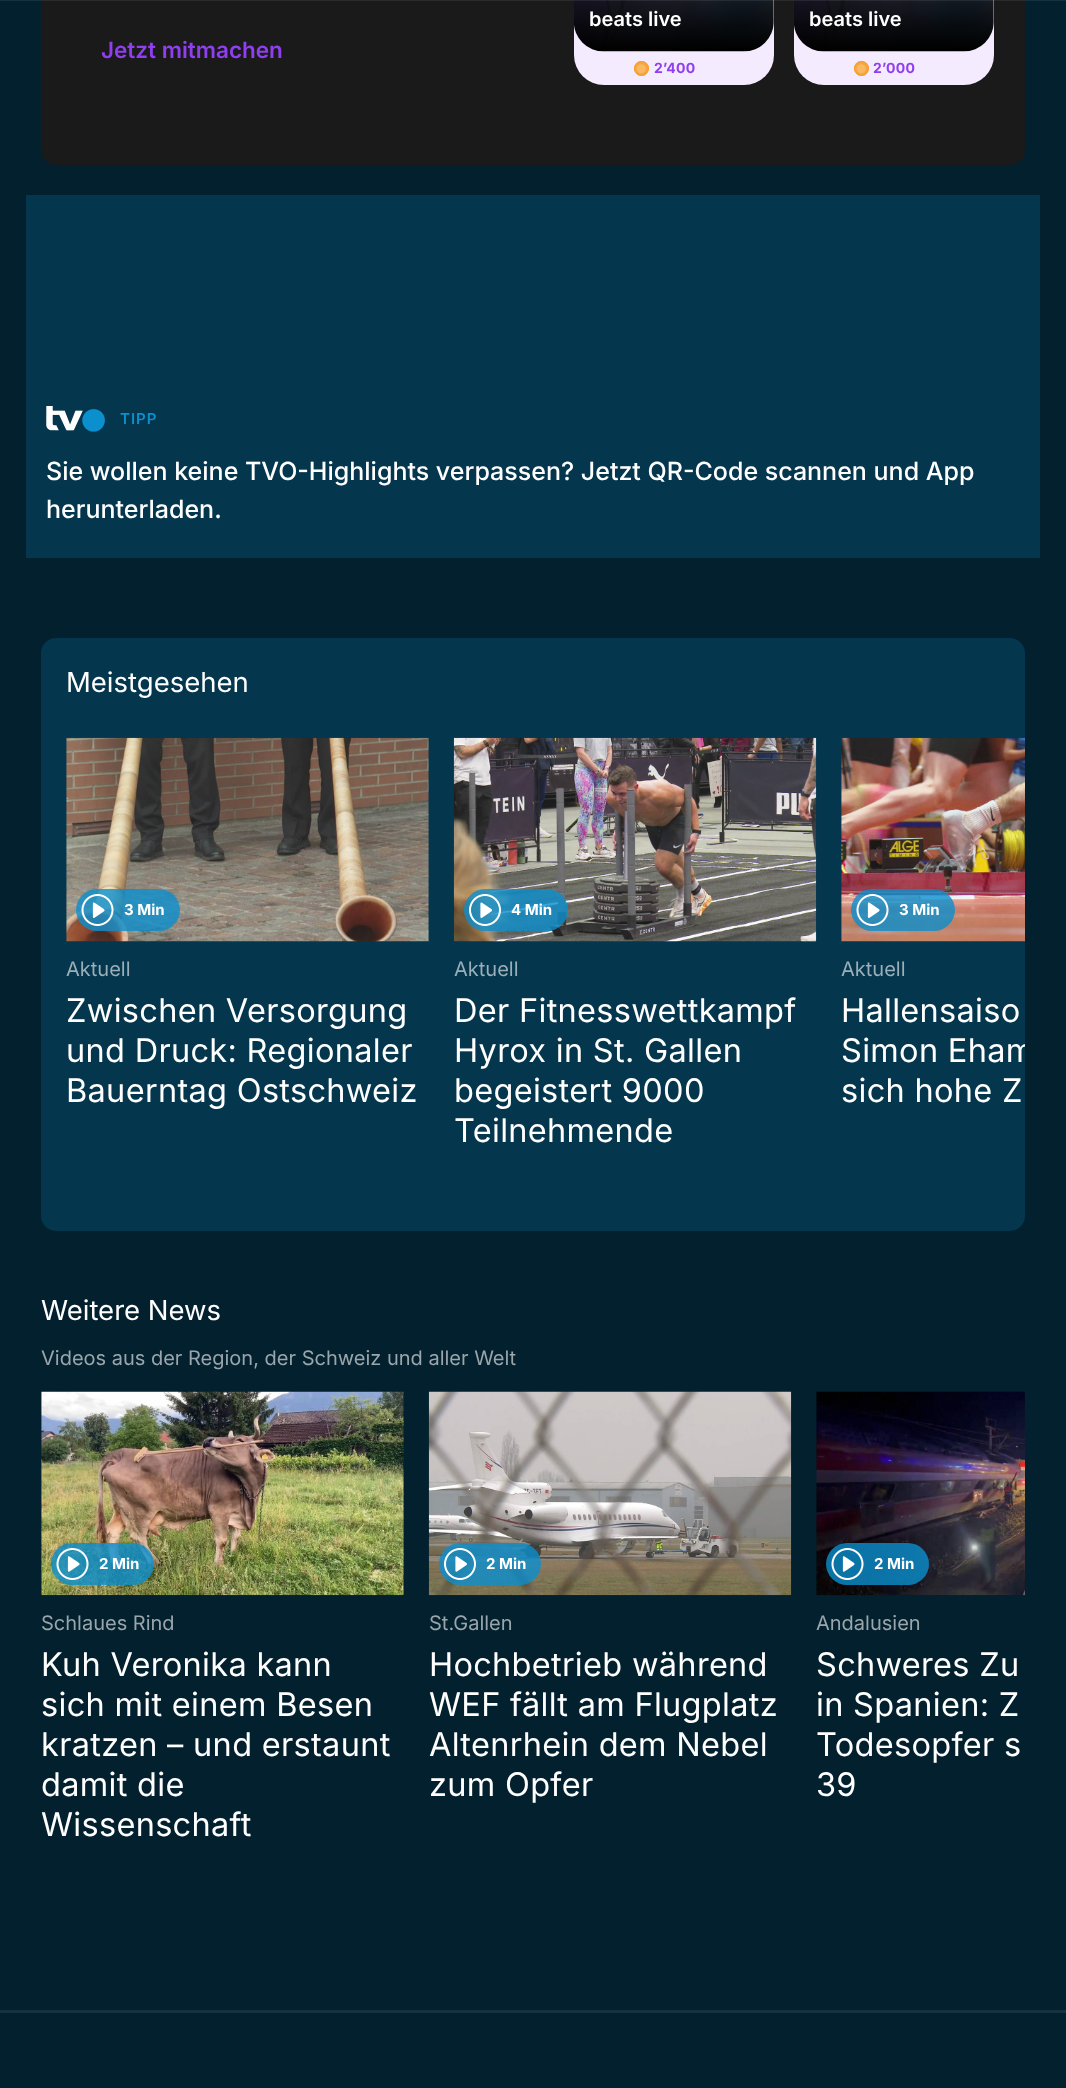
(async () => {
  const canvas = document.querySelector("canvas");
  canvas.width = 1066;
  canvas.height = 2088;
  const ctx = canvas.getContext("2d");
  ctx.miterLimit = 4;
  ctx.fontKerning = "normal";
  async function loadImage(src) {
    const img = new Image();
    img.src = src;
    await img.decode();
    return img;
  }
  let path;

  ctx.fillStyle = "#02202e";
  ctx.fillRect(0, 0, 1066, 2088);
  ctx.fillStyle = "#1a1a1a";
  ctx.beginPath();
  ctx.roundRect(41, -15, 984, 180, 15);
  ctx.fill();
  ctx.fillStyle = "#f5ebfe";
  ctx.beginPath();
  ctx.roundRect(574, -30, 200, 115, 30);
  ctx.fill();
  ctx.drawImage(await loadImage("img/1.png"), 574, 0, 200, 52);
  ctx.beginPath();
  ctx.roundRect(794, -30, 200, 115, 30);
  ctx.fill();
  ctx.drawImage(await loadImage("img/2.png"), 793, 0, 201, 52);
  ctx.fillStyle = "rgba(255, 255, 255, 0.08)";
  ctx.fillRect(0, 0, 1066, 1);
  ctx.fillStyle = "#f7a63d";
  ctx.beginPath();
  ctx.arc(641.5, 68.5, 7.5, 0, Math.PI * 2);
  ctx.fill();
  path = new Path2D("M641.2 68.8H641.5");
  ctx.strokeStyle = "#f9b864";
  ctx.lineWidth = 9.1;
  ctx.lineCap = "round";
  ctx.setLineDash([0, 12.5]);
  ctx.stroke(path);
  ctx.beginPath();
  ctx.arc(641.5, 68.5, 7, 0, Math.PI * 2);
  ctx.strokeStyle = "rgba(246, 154, 35, 0.9)";
  ctx.lineWidth = 1;
  ctx.setLineDash([]);
  ctx.stroke();
  ctx.beginPath();
  ctx.arc(861.5, 68.5, 7.5, 0, Math.PI * 2);
  ctx.fill();
  path = new Path2D("M861.2 68.8H861.5");
  ctx.strokeStyle = "#f9b864";
  ctx.lineWidth = 9.1;
  ctx.setLineDash([0, 12.5]);
  ctx.stroke(path);
  ctx.beginPath();
  ctx.arc(861.5, 68.5, 7, 0, Math.PI * 2);
  ctx.strokeStyle = "rgba(246, 154, 35, 0.9)";
  ctx.lineWidth = 1;
  ctx.setLineDash([]);
  ctx.stroke();
  ctx.fillStyle = "#04364e";
  ctx.fillRect(26, 195, 1014, 363);
  ctx.drawImage(await loadImage("img/3.png"), 46, 406, 59, 26);
  ctx.beginPath();
  ctx.roundRect(41, 638, 984, 593, 15);
  ctx.fill();
  ctx.drawImage(await loadImage("img/4.png"), 66, 737, 363, 205);
  ctx.fillStyle = "rgba(11, 143, 205, 0.8)";
  ctx.beginPath();
  ctx.roundRect(76, 889, 104, 42, 21);
  ctx.fill();
  ctx.drawImage(await loadImage("img/5.png"), 81, 894, 33, 32);
  ctx.drawImage(await loadImage("img/6.png"), 453, 737, 364, 205);
  ctx.beginPath();
  ctx.roundRect(464, 889, 104, 42, 21);
  ctx.fill();
  ctx.drawImage(await loadImage("img/7.png"), 469, 894, 32, 32);
  ctx.drawImage(await loadImage("img/8.png"), 841, 737, 184, 205);
  ctx.beginPath();
  ctx.roundRect(851, 889, 104, 42, 21);
  ctx.fill();
  ctx.drawImage(await loadImage("img/9.png"), 856, 894, 33, 32);
  ctx.drawImage(await loadImage("img/10.png"), 41, 1391, 363, 205);
  ctx.beginPath();
  ctx.roundRect(51, 1543, 103, 42, 21);
  ctx.fill();
  ctx.drawImage(await loadImage("img/11.png"), 56, 1548, 33, 32);
  ctx.drawImage(await loadImage("img/12.png"), 428, 1391, 364, 205);
  ctx.beginPath();
  ctx.roundRect(439, 1543, 102, 42, 21);
  ctx.fill();
  ctx.drawImage(await loadImage("img/13.png"), 444, 1548, 32, 32);
  ctx.drawImage(await loadImage("img/14.png"), 816, 1391, 209, 205);
  ctx.beginPath();
  ctx.roundRect(826, 1543, 103, 42, 21);
  ctx.fill();
  ctx.drawImage(await loadImage("img/15.png"), 831, 1548, 33, 32);
  ctx.fillStyle = "#16323f";
  ctx.fillRect(0, 2010, 1066, 3);
  ctx.font = "600 22.5px Inter";
  ctx.fillStyle = "#8f3fef";
  ctx.fillText("Jetzt mitmachen", 101, 58);
  ctx.font = "600 20px Inter";
  ctx.fillStyle = "#ffffff";
  ctx.fillText("beats live", 589, 26);
  ctx.letterSpacing = "0.25px";
  ctx.font = "bold 14px Inter";
  ctx.fillStyle = "#8f3fef";
  ctx.fillText("2’400", 654, 73);
  ctx.letterSpacing = "0px";
  ctx.font = "600 20px Inter";
  ctx.fillStyle = "#ffffff";
  ctx.fillText("beats live", 809, 26);
  ctx.letterSpacing = "0.25px";
  ctx.font = "bold 14px Inter";
  ctx.fillStyle = "#8f3fef";
  ctx.fillText("2’000", 873, 73);
  ctx.letterSpacing = "1px";
  ctx.font = "600 15px Inter";
  ctx.fillStyle = "#0b8fcd";
  ctx.fillText("TIPP", 120, 424);
  ctx.letterSpacing = "0px";
  ctx.font = "500 25px Inter";
  ctx.fillStyle = "#ffffff";
  ctx.fillText("Sie wollen keine TVO-Highlights verpassen? Jetzt QR-Code scannen und App", 46, 480);
  ctx.fillText("herunterladen.", 46, 518);
  ctx.font = "27.5px Inter";
  ctx.fillText("Meistgesehen", 66, 692);
  ctx.font = "bold 15px Inter";
  ctx.fillText("3 Min", 124, 915);
  ctx.font = "20px Inter";
  ctx.fillStyle = "#9bafb8";
  ctx.fillText("Aktuell", 66, 976);
  ctx.letterSpacing = "0.3px";
  ctx.font = "32.5px Inter";
  ctx.fillStyle = "#ffffff";
  for (const [text, x, y] of [
    ["Zwischen Versorgung", 66, 1022],
    ["und Druck: Regionaler", 66, 1062],
    ["Bauerntag Ostschweiz", 66, 1102],
  ]) {
    ctx.fillText(text, x, y);
  }
  ctx.letterSpacing = "0px";
  ctx.font = "bold 15px Inter";
  ctx.fillText("4 Min", 511, 915);
  ctx.font = "20px Inter";
  ctx.fillStyle = "#9bafb8";
  ctx.fillText("Aktuell", 454, 976);
  ctx.letterSpacing = "0.3px";
  ctx.font = "32.5px Inter";
  ctx.fillStyle = "#ffffff";
  for (const [text, x, y] of [
    ["Der Fitnesswettkampf", 454, 1022],
    ["Hyrox in St. Gallen", 454, 1062],
    ["begeistert 9000", 454, 1102],
    ["Teilnehmende", 454, 1142],
  ]) {
    ctx.fillText(text, x, y);
  }
  ctx.letterSpacing = "0px";
  ctx.font = "bold 15px Inter";
  ctx.fillText("3 Min", 899, 915);
  ctx.font = "20px Inter";
  ctx.fillStyle = "#9bafb8";
  ctx.fillText("Aktuell", 841, 976);
  ctx.letterSpacing = "0.3px";
  ctx.font = "32.5px Inter";
  ctx.fillStyle = "#ffffff";
  ctx.fillText("Hallensaiso", 841, 1022);
  ctx.save();
  ctx.beginPath();
  ctx.rect(841, 941, 184, 185);
  ctx.clip();
  ctx.fillText("Simon Eham", 841, 1062);
  ctx.restore();
  ctx.fillText("sich hohe Z", 841, 1102);
  ctx.letterSpacing = "0px";
  ctx.font = "27.5px Inter";
  ctx.fillText("Weitere News", 41, 1320);
  ctx.font = "20px Inter";
  ctx.fillStyle = "#9aa6ab";
  ctx.fillText("Videos aus der Region, der Schweiz und aller Welt", 41, 1365);
  ctx.font = "bold 15px Inter";
  ctx.fillStyle = "#ffffff";
  ctx.fillText("2 Min", 99, 1569);
  ctx.font = "20px Inter";
  ctx.fillStyle = "#9aa6ab";
  ctx.fillText("Schlaues Rind", 41, 1630);
  ctx.letterSpacing = "0.3px";
  ctx.font = "32.5px Inter";
  ctx.fillStyle = "#ffffff";
  for (const [text, x, y] of [
    ["Kuh Veronika kann", 41, 1676],
    ["sich mit einem Besen", 41, 1716],
    ["kratzen – und erstaunt", 41, 1756],
    ["damit die", 41, 1796],
    ["Wissenschaft", 41, 1836],
  ]) {
    ctx.fillText(text, x, y);
  }
  ctx.letterSpacing = "0px";
  ctx.font = "bold 15px Inter";
  ctx.fillText("2 Min", 486, 1569);
  ctx.font = "20px Inter";
  ctx.fillStyle = "#9aa6ab";
  ctx.fillText("St.Gallen", 429, 1630);
  ctx.letterSpacing = "0.3px";
  ctx.font = "32.5px Inter";
  ctx.fillStyle = "#ffffff";
  for (const [text, x, y] of [
    ["Hochbetrieb während", 429, 1676],
    ["WEF fällt am Flugplatz", 429, 1716],
    ["Altenrhein dem Nebel", 429, 1756],
    ["zum Opfer", 429, 1796],
  ]) {
    ctx.fillText(text, x, y);
  }
  ctx.letterSpacing = "0px";
  ctx.font = "bold 15px Inter";
  ctx.fillText("2 Min", 874, 1569);
  ctx.font = "20px Inter";
  ctx.fillStyle = "#9aa6ab";
  ctx.fillText("Andalusien", 816, 1630);
  ctx.letterSpacing = "0.3px";
  ctx.font = "32.5px Inter";
  ctx.fillStyle = "#ffffff";
  for (const [text, x, y] of [
    ["Schweres Zu", 816, 1676],
    ["in Spanien: Z", 816, 1716],
    ["Todesopfer s", 816, 1756],
    ["39", 816, 1796],
  ]) {
    ctx.fillText(text, x, y);
  }
})();
